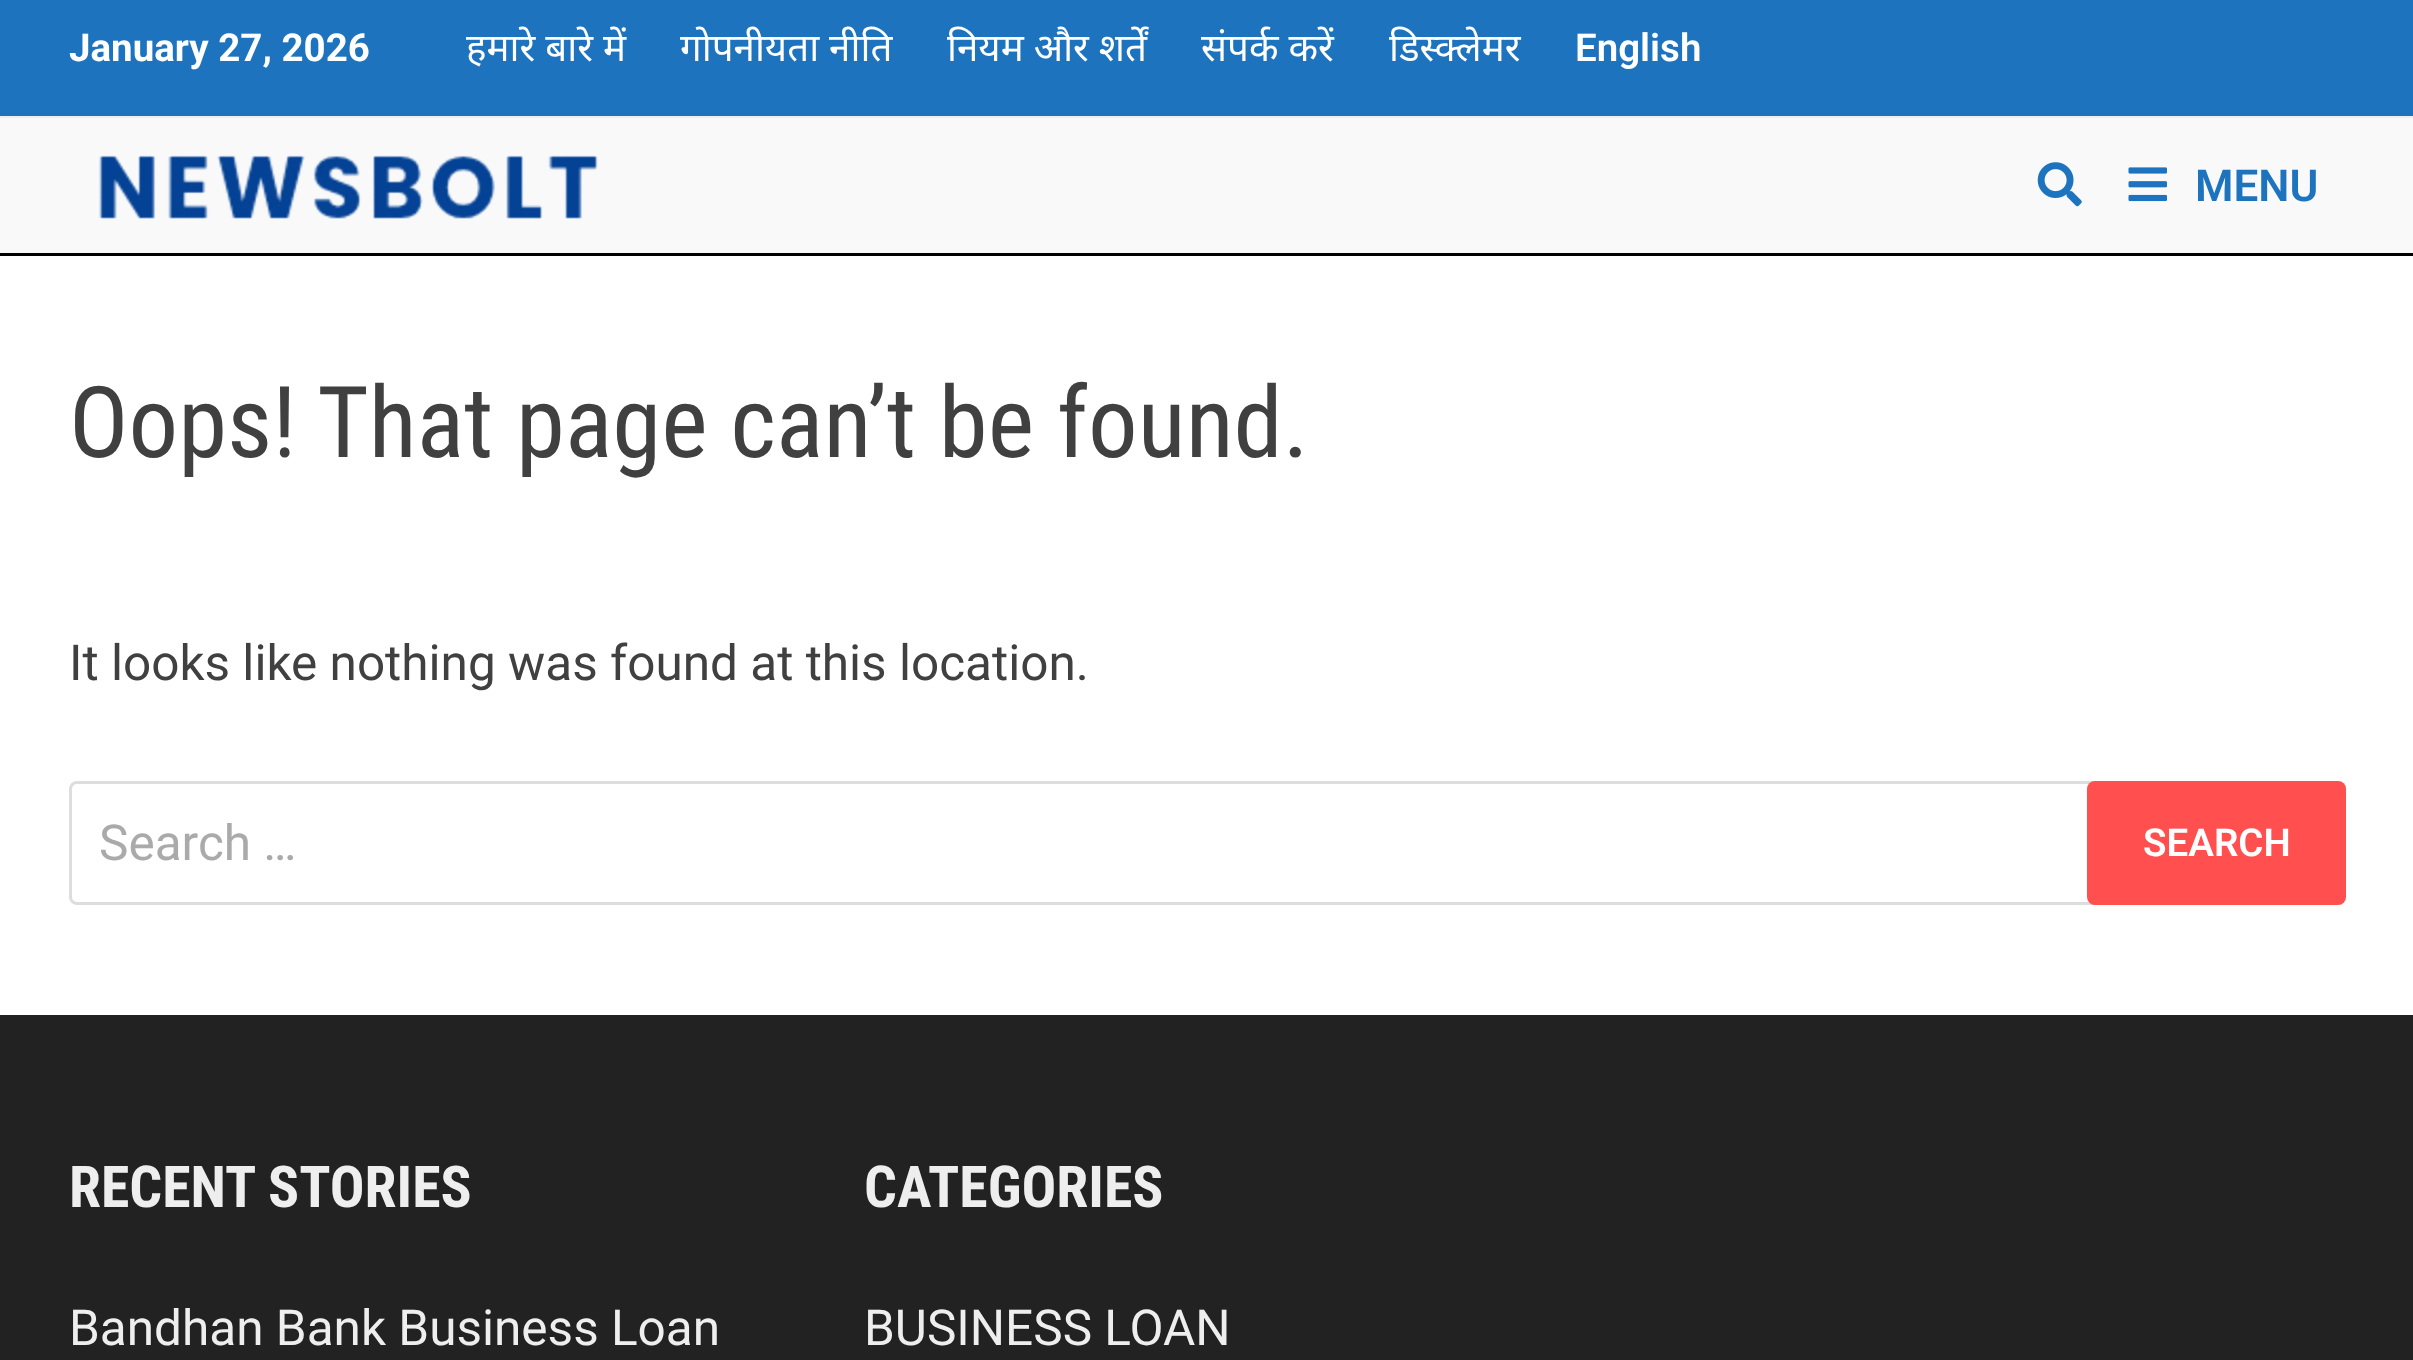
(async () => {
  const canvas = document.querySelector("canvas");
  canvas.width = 2413;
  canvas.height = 1360;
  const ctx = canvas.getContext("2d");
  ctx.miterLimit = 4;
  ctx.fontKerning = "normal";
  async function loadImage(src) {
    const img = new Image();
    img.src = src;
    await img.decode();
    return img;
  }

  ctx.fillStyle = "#ffffff";
  ctx.fillRect(0, 0, 2413, 1360);
  for (const [x, y, w, h, color] of [
    [0, 0, 2413, 116, "#1e73be"],
    [0, 116, 2413, 2, "#eeeeee"],
    [0, 253, 2413, 3, "#000000"],
    [0, 118, 2413, 135, "#f9f9f9"],
  ]) {
    ctx.fillStyle = color;
    ctx.fillRect(x, y, w, h);
  }
  ctx.drawImage(await loadImage("img/1.png"), 98, 155, 500, 64);
  ctx.drawImage(await loadImage("img/2.png"), 2037, 162, 45, 45);
  ctx.drawImage(await loadImage("img/3.png"), 2128, 167, 39, 35);
  ctx.beginPath();
  ctx.roundRect(70.5, 782.5, 2274, 121, 6.5);
  ctx.strokeStyle = "#dddddd";
  ctx.lineWidth = 3;
  ctx.stroke();
  ctx.fillStyle = "#ff4f4f";
  ctx.beginPath();
  ctx.roundRect(2087, 781, 259, 124, 8);
  ctx.fill();
  ctx.fillStyle = "#222222";
  ctx.fillRect(0, 1015, 2413, 345);
  ctx.font = "bold 38.5px Roboto";
  ctx.fillStyle = "#ffffff";
  ctx.fillText("January 27, 2026", 69, 61);
  ctx.font = "38.5px Noto Sans";
  for (const [text, x, y] of [
    ["हमारे बारे में", 466, 61],
    ["गोपनीयता नीति", 680, 61],
    ["नियम और शर्तें", 947, 61],
    ["संपर्क करें", 1201, 61],
    ["डिस्क्लेमर", 1389, 61],
  ]) {
    ctx.fillText(text, x, y);
  }
  ctx.font = "600 38.5px Roboto";
  ctx.fillText("English", 1575, 61);
  ctx.font = "600 44px Roboto";
  ctx.fillStyle = "#1e73be";
  ctx.fillText("MENU", 2195, 201);
  ctx.font = "99px Roboto Condensed";
  ctx.fillStyle = "#404040";
  ctx.fillText("Oops! That page can’t be found.", 69, 457);
  ctx.font = "49.5px Roboto";
  ctx.fillText("It looks like nothing was found at this location.", 69, 680);
  ctx.fillStyle = "#aaaaaa";
  ctx.fillText("Search …", 99, 860);
  ctx.font = "600 38.5px Roboto";
  ctx.fillStyle = "#ffffff";
  ctx.fillText("SEARCH", 2143, 856);
  ctx.font = "bold 57.75px Roboto Condensed";
  ctx.fillStyle = "#eeeeee";
  ctx.fillText("RECENT STORIES", 69, 1207);
  ctx.font = "49.5px Roboto";
  ctx.fillText("Bandhan Bank Business Loan", 69, 1345);
  ctx.font = "bold 57.75px Roboto Condensed";
  ctx.fillText("CATEGORIES", 864, 1207);
  ctx.font = "49.5px Roboto";
  ctx.fillText("BUSINESS LOAN", 864, 1345);
})();
